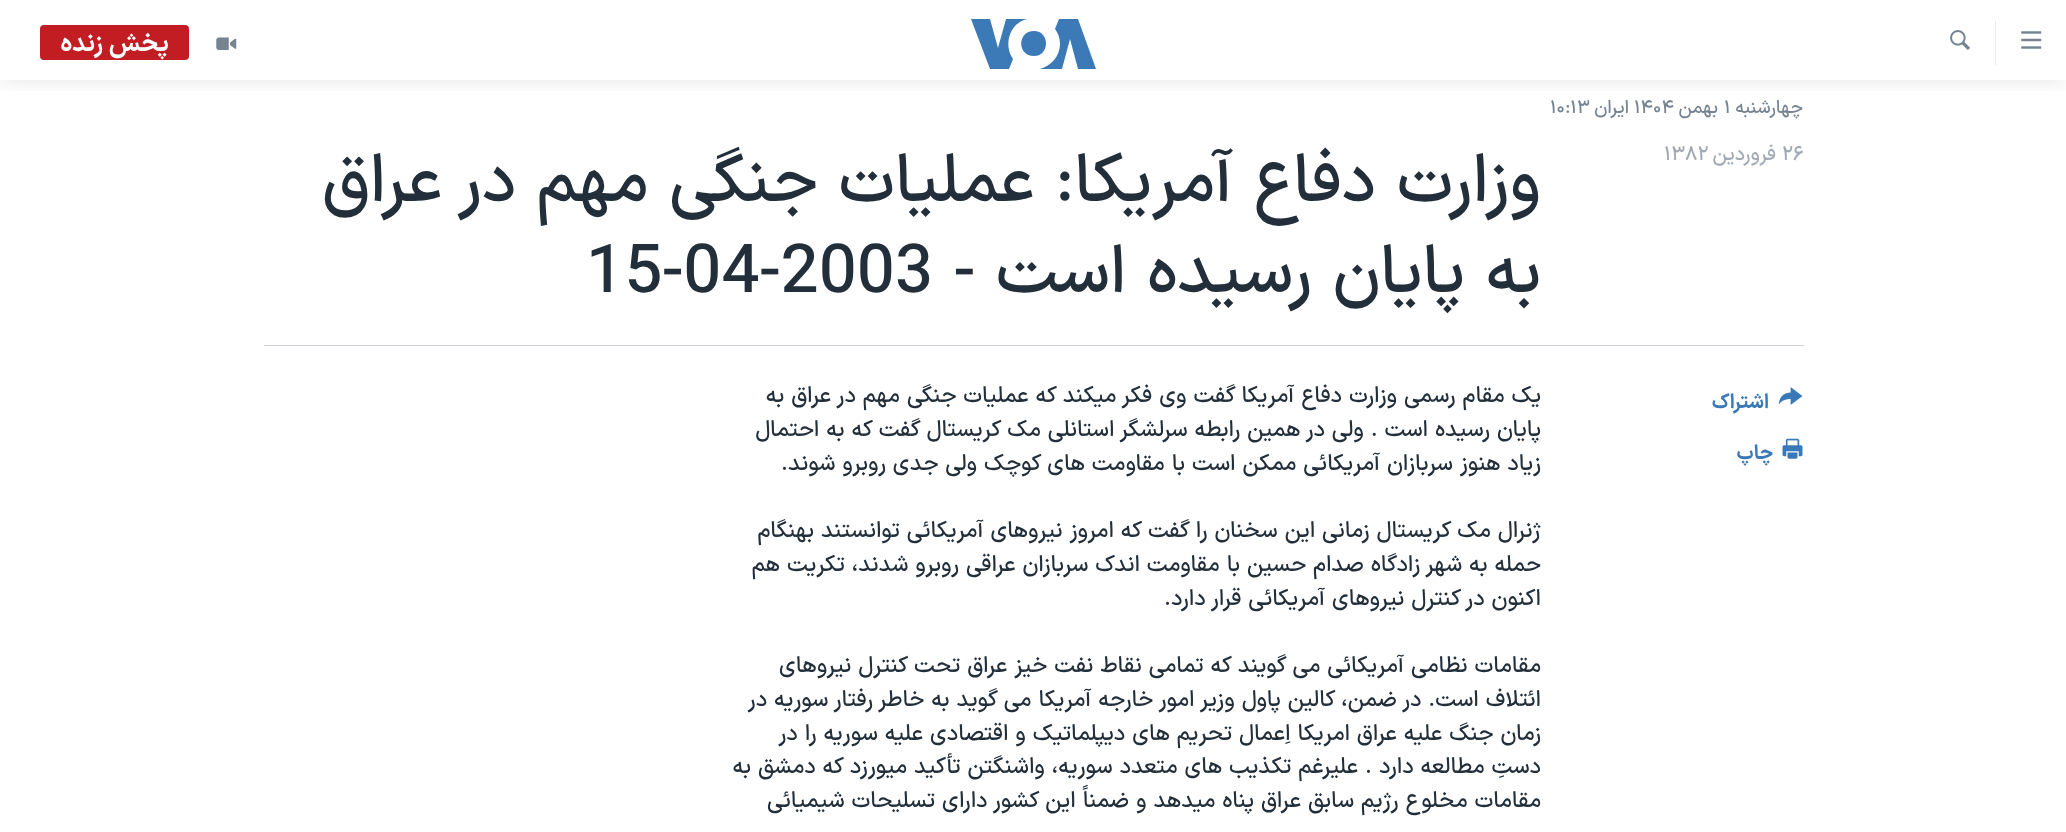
(async () => {
  const canvas = document.querySelector("canvas");
  canvas.width = 2066;
  canvas.height = 832;
  const ctx = canvas.getContext("2d");
  ctx.miterLimit = 4;
  ctx.fontKerning = "normal";
  async function loadImage(src) {
    const img = new Image();
    img.src = src;
    await img.decode();
    return img;
  }
  let path;

  ctx.fillStyle = "#ffffff";
  ctx.fillRect(0, 0, 2066, 832);
  ctx.save();
  ctx.beginPath();
  ctx.rect(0, 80, 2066, 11);
  ctx.clip();
  ctx.fillStyle = "rgba(0, 0, 0, 0.1)";
  ctx.filter = "blur(12.5px)";
  ctx.beginPath();
  ctx.rect(0, 0, 2066, 80);
  ctx.fill();
  ctx.filter = "none";
  ctx.restore();
  ctx.drawImage(await loadImage("img/1.png"), 2021, 31, 21, 18);
  ctx.fillStyle = "#ebebeb";
  ctx.fillRect(1995, 21, 1, 44);
  ctx.drawImage(await loadImage("img/2.png"), 1950, 30, 20, 20);
  ctx.fillStyle = "#3b79b7";
  path = new Path2D("M1013 59L1009 69H990L971 19H990L998 48L1006 19H1027C1010 23 1003 44 1013 59ZM1034 31C1017 31 1017 56 1034 56C1050 56 1050 31 1034 31ZM1060 44C1060 56 1051 66 1040 69H1062L1070 39L1078 69H1096L1078 19H1059L1055 29C1058 33 1060 38 1060 44Z");
  ctx.fill(path);
  ctx.drawImage(await loadImage("img/3.png"), 216, 37, 21, 13);
  ctx.fillStyle = "#c11d22";
  ctx.beginPath();
  ctx.roundRect(40, 25, 149, 35, 4);
  ctx.fill();
  ctx.fillStyle = "#cbd1d6";
  ctx.fillRect(264, 345, 1540, 1);
  ctx.drawImage(await loadImage("img/4.png"), 1778, 387, 25, 18);
  ctx.drawImage(await loadImage("img/5.png"), 1782, 438, 21, 21);
  ctx.direction = "rtl";
  ctx.font = "bold 25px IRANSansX";
  ctx.fillStyle = "#ffffff";
  ctx.fillText("پخش زنده", 169, 51);
  ctx.font = "500 18.5px IRANSansX";
  ctx.fillStyle = "#768492";
  ctx.fillText("چهارشنبه", 1803, 113);
  ctx.direction = "ltr";
  ctx.fillText("۱", 1724, 113);
  ctx.direction = "rtl";
  ctx.fillText("بهمن", 1718, 113);
  ctx.direction = "ltr";
  ctx.fillText("۱۴۰۴", 1634, 113);
  ctx.direction = "rtl";
  ctx.fillText("ایران", 1629, 113);
  ctx.direction = "ltr";
  ctx.fillText("۱۰:۱۳", 1550, 113);
  ctx.font = "500 20px IRANSansX";
  ctx.fillStyle = "#a1aab4";
  ctx.fillText("۲۶", 1782, 160);
  ctx.direction = "rtl";
  ctx.fillText("فروردین", 1776, 160);
  ctx.direction = "ltr";
  ctx.fillText("۱۳۸۲", 1664, 160);
  ctx.direction = "rtl";
  ctx.font = "500 67.5px IRANSansX";
  ctx.fillStyle = "#222f3a";
  ctx.fillText("وزارت دفاع آمريکا: عمليات جنگی مهم در عراق", 1541, 201);
  ctx.fillText("به پايان رسيده است -", 1541, 292);
  ctx.direction = "ltr";
  ctx.fillText("15-04-2003", 586, 292);
  ctx.direction = "rtl";
  ctx.font = "bold 20px IRANSansX";
  ctx.fillStyle = "#3a79b7";
  ctx.fillText("اشتراک", 1769, 408);
  ctx.fillText("چاپ", 1773, 459);
  ctx.font = "500 22.5px IRANSansX";
  ctx.fillStyle = "#222f3a";
  for (const [text, x, y] of [
    ["يک مقام رسمی وزارت دفاع آمريکا گفت وی فکر ميکند که عمليات جنگی مهم در عراق به", 1541, 402],
    ["پايان رسيده است . ولی در همين رابطه سرلشگر استانلی مک کريستال گفت که به احتمال", 1541, 436],
    ["زياد هنوز سربازان آمريکائی ممکن است با مقاومت های کوچک ولی جدی روبرو شوند.", 1541, 470],
    ["ژنرال مک کريستال زمانی اين سخنان را گفت که امروز نيروهای آمريکائی توانستند بهنگام", 1541, 537],
    ["حمله به شهر زادگاه صدام حسين با مقاومت اندک سربازان عراقی روبرو شدند، تکريت هم", 1541, 571],
    ["اکنون در کنترل نيروهای آمريکائی قرار دارد.", 1541, 605],
    ["مقامات نظامی آمريکائی می گويند که تمامی نقاط نفت خيز عراق تحت کنترل نيروهای", 1541, 672],
    ["ائتلاف است. در ضمن، کالين پاول وزير امور خارجه آمريکا می گويد به خاطر رفتار سوريه در", 1541, 706],
    ["زمان جنگ عليه عراق امريکا اِعمال تحريم های ديپلماتيک و اقتصادی عليه سوريه را در", 1541, 740],
    ["دستِ مطالعه دارد . عليرغم تکذيب های متعدد سوريه، واشنگتن تأکيد ميورزد که دمشق به", 1541, 773],
    ["مقامات مخلوع رژيم سابق عراق پناه ميدهد و ضمناً اين کشور دارای تسليحات شيميائی", 1541, 807],
  ]) {
    ctx.fillText(text, x, y);
  }
})();
